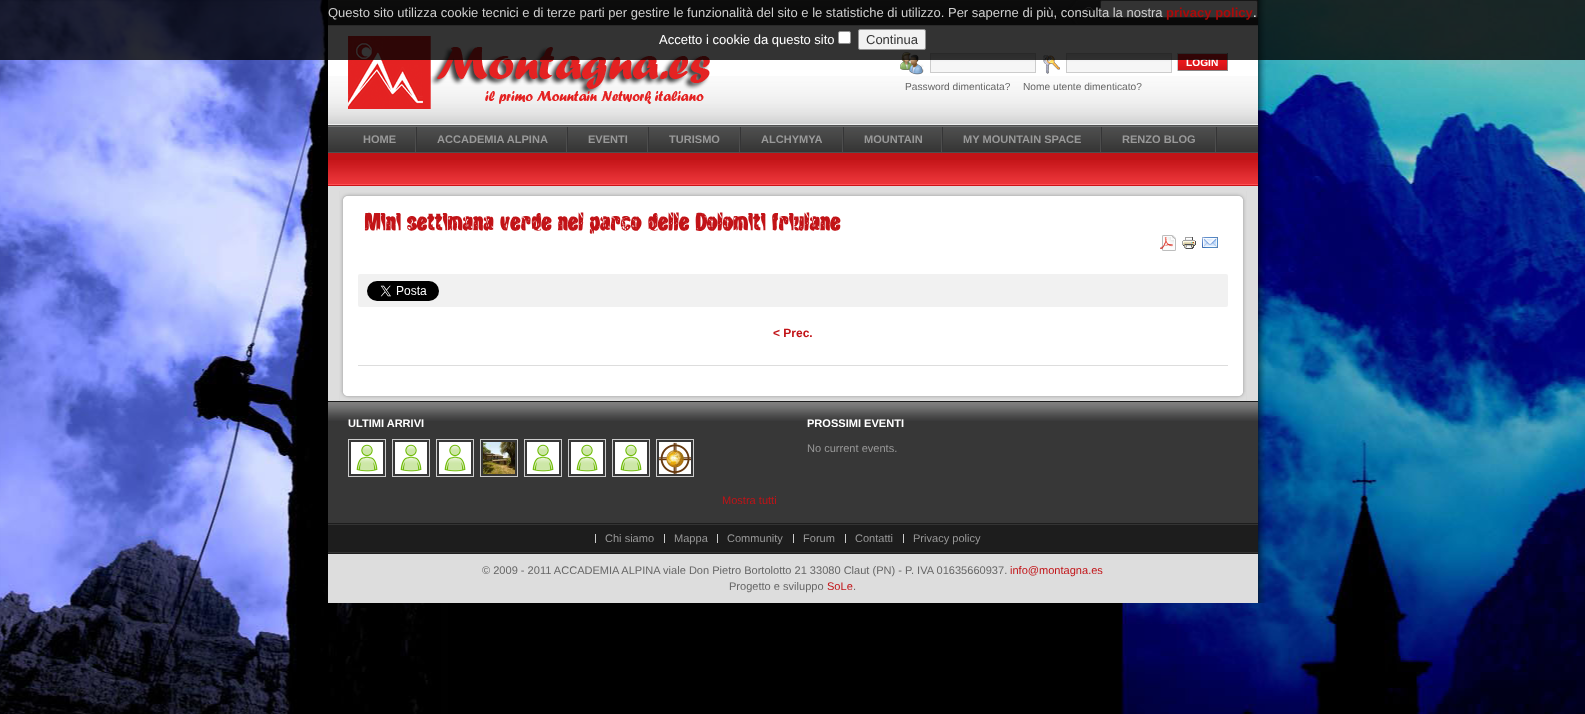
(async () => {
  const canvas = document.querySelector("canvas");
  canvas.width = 1585;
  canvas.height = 714;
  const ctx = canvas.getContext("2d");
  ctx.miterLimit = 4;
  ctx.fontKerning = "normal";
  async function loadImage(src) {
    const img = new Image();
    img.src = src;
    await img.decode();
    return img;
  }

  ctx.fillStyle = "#ffffff";
  ctx.fillRect(0, 0, 1585, 714);
  ctx.drawImage(await loadImage("img/1.png"), 0, 0, 1585, 714);
  ctx.drawImage(await loadImage("img/2.png"), 320, 0, 946, 603);
  ctx.fillStyle = "#2f2f2f";
  ctx.fillRect(328, 14, 930, 11);
  ctx.drawImage(await loadImage("img/3.png"), 328, 0, 930, 14);
  ctx.drawImage(await loadImage("img/4.png"), 1068, 0, 28, 24);
  ctx.fillStyle = "#ffffff";
  ctx.beginPath();
  ctx.roundRect(1100.5, 0.5, 157, 17, 1.5);
  ctx.fill();
  ctx.strokeStyle = "#767676";
  ctx.stroke();
  ctx.fillRect(328, 26, 930, 50);
  ctx.drawImage(await loadImage("img/5.png"), 328, 76, 930, 49);
  ctx.fillStyle = "#cccccc";
  ctx.fillRect(328, 25, 930, 1);
  ctx.drawImage(await loadImage("img/6.png"), 348, 36, 362, 73);
  ctx.drawImage(await loadImage("img/7.png"), 900, 52, 24, 23);
  ctx.drawImage(await loadImage("img/8.png"), 931, 54, 104, 18);
  ctx.strokeStyle = "#cccccc";
  ctx.strokeRect(930.5, 53.5, 105, 19);
  ctx.drawImage(await loadImage("img/9.png"), 1043, 55, 17, 19);
  ctx.drawImage(await loadImage("img/8.png"), 1067, 54, 104, 18);
  ctx.strokeRect(1066.5, 53.5, 105, 19);
  ctx.drawImage(await loadImage("img/10.png"), 1178, 54, 49, 16);
  for (const [x, y, w, h, color] of [
    [1177, 53, 51, 1, "#cccccc"],
    [1227, 53, 1, 18, "#888888"],
    [1177, 70, 51, 1, "#888888"],
    [1177, 53, 1, 18, "#cccccc"],
  ]) {
    ctx.fillStyle = color;
    ctx.fillRect(x, y, w, h);
  }
  ctx.drawImage(await loadImage("img/11.png"), 328, 125, 930, 28);
  ctx.drawImage(await loadImage("img/12.png"), 415, 127, 2, 25);
  ctx.drawImage(await loadImage("img/12.png"), 566, 127, 2, 25);
  ctx.drawImage(await loadImage("img/12.png"), 647, 127, 2, 25);
  ctx.drawImage(await loadImage("img/12.png"), 739, 127, 2, 25);
  ctx.drawImage(await loadImage("img/12.png"), 842, 127, 2, 25);
  ctx.drawImage(await loadImage("img/12.png"), 941, 127, 2, 25);
  ctx.drawImage(await loadImage("img/12.png"), 1100, 127, 2, 25);
  ctx.drawImage(await loadImage("img/12.png"), 1215, 127, 2, 25);
  ctx.fillStyle = "#c21317";
  ctx.fillRect(328, 153, 930, 7);
  ctx.drawImage(await loadImage("img/13.png"), 328, 160, 930, 26);
  ctx.drawImage(await loadImage("img/14.png"), 338, 191, 910, 210);
  ctx.drawImage(await loadImage("img/15.png"), 340, 191, 906, 9);
  ctx.drawImage(await loadImage("img/16.png"), 340, 392, 906, 9);
  ctx.drawImage(await loadImage("img/17.png"), 364, 212, 37, 19);
  ctx.drawImage(await loadImage("img/18.png"), 407, 213, 87, 18);
  ctx.drawImage(await loadImage("img/19.png"), 500, 213, 52, 18);
  ctx.drawImage(await loadImage("img/20.png"), 557, 212, 27, 19);
  ctx.drawImage(await loadImage("img/21.png"), 589, 216, 53, 18);
  ctx.drawImage(await loadImage("img/22.png"), 648, 212, 42, 19);
  ctx.drawImage(await loadImage("img/23.png"), 695, 212, 71, 19);
  ctx.drawImage(await loadImage("img/24.png"), 772, 212, 69, 19);
  ctx.drawImage(await loadImage("img/25.png"), 1160, 235, 16, 16);
  ctx.drawImage(await loadImage("img/26.png"), 1182, 237, 14, 12);
  ctx.drawImage(await loadImage("img/27.png"), 1202, 237, 16, 11);
  ctx.fillStyle = "#f1f1f1";
  ctx.beginPath();
  ctx.roundRect(358, 274, 870, 33, 2);
  ctx.fill();
  ctx.drawImage(await loadImage("img/28.png"), 367, 281, 72, 20);
  ctx.fillStyle = "#dddddd";
  ctx.fillRect(358, 365, 870, 1);
  ctx.fillStyle = "#373737";
  ctx.fillRect(328, 421, 930, 102);
  ctx.drawImage(await loadImage("img/29.png"), 328, 402, 930, 19);
  ctx.fillStyle = "#1d1d1d";
  ctx.fillRect(328, 401, 930, 1);
  ctx.fillRect(328, 523, 930, 1);
  ctx.strokeRect(348.5, 439.5, 37, 37);
  ctx.strokeRect(392.5, 439.5, 37, 37);
  ctx.strokeRect(436.5, 439.5, 37, 37);
  ctx.strokeRect(480.5, 439.5, 37, 37);
  ctx.strokeRect(524.5, 439.5, 37, 37);
  ctx.strokeRect(568.5, 439.5, 37, 37);
  ctx.strokeRect(612.5, 439.5, 37, 37);
  ctx.strokeRect(656.5, 439.5, 37, 37);
  ctx.drawImage(await loadImage("img/30.png"), 351, 442, 32, 32);
  ctx.drawImage(await loadImage("img/30.png"), 395, 442, 32, 32);
  ctx.drawImage(await loadImage("img/30.png"), 439, 442, 32, 32);
  ctx.drawImage(await loadImage("img/31.png"), 483, 442, 32, 32);
  ctx.drawImage(await loadImage("img/30.png"), 527, 442, 32, 32);
  ctx.drawImage(await loadImage("img/30.png"), 571, 442, 32, 32);
  ctx.drawImage(await loadImage("img/30.png"), 615, 442, 32, 32);
  ctx.drawImage(await loadImage("img/32.png"), 659, 442, 32, 32);
  for (const [x, y, w, h, color] of [
    [328, 525, 930, 27, "#1d1d1d"],
    [328, 524, 930, 1, "#333333"],
    [328, 552, 930, 1, "#333333"],
    [595, 534, 1, 9, "#cccccc"],
    [664, 534, 1, 9, "#cccccc"],
    [717, 534, 1, 9, "#cccccc"],
    [793, 534, 1, 9, "#cccccc"],
    [845, 534, 1, 9, "#cccccc"],
    [903, 534, 1, 9, "#cccccc"],
    [328, 553, 930, 1, "#1d1d1d"],
  ]) {
    ctx.fillStyle = color;
    ctx.fillRect(x, y, w, h);
  }
  ctx.font = "bold 10.2px Liberation Sans";
  ctx.fillStyle = "#ffffff";
  ctx.fillText("LOGIN", 1186, 66);
  ctx.fillStyle = "rgba(0, 0, 0, 0.8)";
  ctx.fillRect(0, 0, 1585, 60);
  ctx.fillStyle = "#f2f2f2";
  ctx.beginPath();
  ctx.roundRect(858.5, 29.5, 67, 20, 1.5);
  ctx.fill();
  ctx.strokeStyle = "#919191";
  ctx.stroke();
  ctx.font = "13px Liberation Sans";
  ctx.fillStyle = "#333333";
  ctx.fillText("Continua", 866, 44);
  ctx.fillStyle = "#ffffff";
  ctx.beginPath();
  ctx.roundRect(838.5, 31.5, 12, 12, 1.5);
  ctx.fill();
  ctx.stroke();
  ctx.fillText("Accetto i cookie da questo sito", 659, 44);
  ctx.fillText(".", 1253, 17);
  ctx.font = "bold 13px Liberation Sans";
  ctx.fillStyle = "#ab0a0a";
  ctx.fillText("privacy policy", 1166, 17);
  ctx.font = "13px Liberation Sans";
  ctx.fillStyle = "#cfcfcf";
  ctx.fillText("Questo sito utilizza cookie tecnici e di terze parti per gestire le funzionalità del sito e le statistiche di utilizzo. Per saperne di più, consulta la nostra", 328, 17);
  ctx.font = "10.2px Liberation Sans";
  ctx.fillStyle = "#666666";
  ctx.fillText("Password dimenticata?", 905, 90);
  ctx.fillText("Nome utente dimenticato?", 1023, 90);
  ctx.font = "bold 11.05px Liberation Sans";
  ctx.fillStyle = "#999999";
  for (const [text, x, y] of [
    ["HOME", 363, 143],
    ["ACCADEMIA ALPINA", 437, 143],
    ["EVENTI", 588, 143],
    ["TURISMO", 669, 143],
    ["ALCHYMYA", 761, 143],
    ["MOUNTAIN", 864, 143],
    ["MY MOUNTAIN SPACE", 963, 143],
    ["RENZO BLOG", 1122, 143],
  ]) {
    ctx.fillText(text, x, y);
  }
  ctx.font = "bold 12px Liberation Sans";
  ctx.fillStyle = "#c21317";
  ctx.fillText("< Prec.", 773, 337);
  ctx.font = "bold 11.05px Liberation Sans";
  ctx.fillStyle = "#ffffff";
  ctx.fillText("ULTIMI ARRIVI", 348, 427);
  ctx.font = "11.05px Liberation Sans";
  ctx.fillStyle = "#c21317";
  ctx.fillText("Mostra tutti", 722, 504);
  ctx.font = "bold 11.05px Liberation Sans";
  ctx.fillStyle = "#ffffff";
  ctx.fillText("PROSSIMI EVENTI", 807, 427);
  ctx.font = "11.05px Liberation Sans";
  ctx.fillStyle = "#999999";
  for (const [text, x, y] of [
    ["No current events.", 807, 452],
    ["Chi siamo", 605, 542],
    ["Mappa", 674, 542],
    ["Community", 727, 542],
    ["Forum", 803, 542],
    ["Contatti", 855, 542],
    ["Privacy policy", 913, 542],
  ]) {
    ctx.fillText(text, x, y);
  }
  ctx.fillStyle = "#666666";
  ctx.fillText("© 2009 - 2011 ACCADEMIA ALPINA viale Don Pietro Bortolotto 21 33080 Claut (PN) - P. IVA 01635660937.", 482, 574);
  ctx.fillStyle = "#c21317";
  ctx.fillText("info@montagna.es", 1010, 574);
  ctx.fillStyle = "#666666";
  ctx.fillText("Progetto e sviluppo", 729, 590);
  ctx.fillStyle = "#c21317";
  ctx.fillText("SoLe", 827, 590);
  ctx.fillStyle = "#666666";
  ctx.fillText(".", 853, 590);
})();
